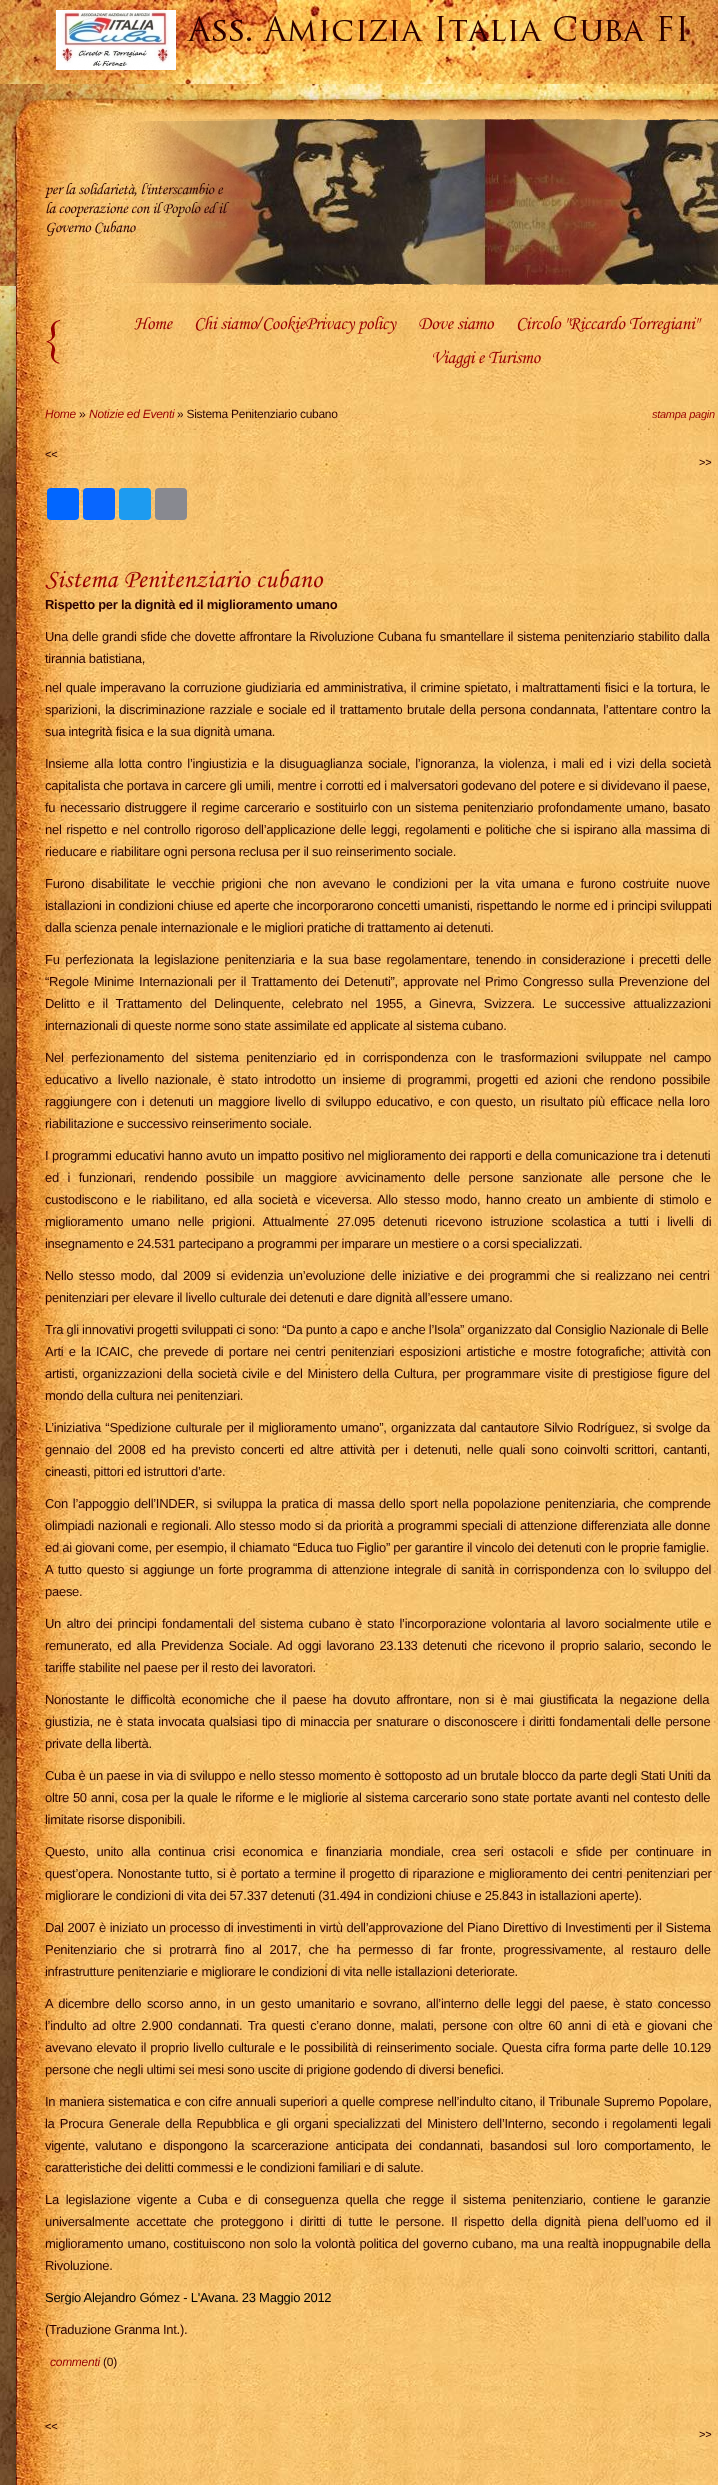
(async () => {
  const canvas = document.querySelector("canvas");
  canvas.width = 718;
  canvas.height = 2485;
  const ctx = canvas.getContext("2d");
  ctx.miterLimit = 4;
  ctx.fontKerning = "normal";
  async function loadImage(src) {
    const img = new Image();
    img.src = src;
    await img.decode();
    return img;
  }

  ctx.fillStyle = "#ffffff";
  ctx.fillRect(0, 0, 718, 2485);
  ctx.drawImage(await loadImage("img/1.png"), 0, 475, 16, 2010);
  ctx.drawImage(await loadImage("img/2.png"), 0, 0, 718, 475);
  ctx.drawImage(await loadImage("img/3.png"), 0, 84, 718, 202);
  ctx.drawImage(await loadImage("img/4.png"), 132, 118, 586, 168);
  ctx.drawImage(await loadImage("img/5.png"), 115, 118, 603, 168);
  ctx.drawImage(await loadImage("img/6.png"), 115, 118, 603, 3);
  ctx.drawImage(await loadImage("img/7.png"), 115, 283, 603, 3);
  ctx.drawImage(await loadImage("img/8.png"), 56, 10, 120, 60);
  ctx.drawImage(await loadImage("img/9.png"), 187, 16, 500, 25);
  ctx.drawImage(await loadImage("img/10.png"), 11, 286, 5, 2174);
  ctx.drawImage(await loadImage("img/11.png"), 16, 286, 702, 2174);
  ctx.drawImage(await loadImage("img/12.png"), 46, 320, 14, 44);
  ctx.fillStyle = "#0166ff";
  ctx.beginPath();
  ctx.roundRect(47, 488, 32, 32, 4);
  ctx.fill();
  ctx.fillStyle = "#0866ff";
  ctx.beginPath();
  ctx.roundRect(83, 488, 32, 32, 4);
  ctx.fill();
  ctx.fillStyle = "#1d9bf0";
  ctx.beginPath();
  ctx.roundRect(119, 488, 32, 32, 4);
  ctx.fill();
  ctx.fillStyle = "#888990";
  ctx.beginPath();
  ctx.roundRect(155, 488, 32, 32, 4);
  ctx.fill();
  ctx.drawImage(await loadImage("img/13.png"), 12, 2460, 4, 25);
  ctx.drawImage(await loadImage("img/14.png"), 16, 2460, 702, 25);
  ctx.letterSpacing = "-0.27px";
  ctx.font = "italic 16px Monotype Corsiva";
  ctx.fillStyle = "#2c0000";
  for (const [text, x, y] of [
    ["per la solidarietà, l'interscambio e", 45, 194],
    ["la cooperazione con il Popolo ed il", 45, 213],
    ["Governo Cubano", 45, 232],
  ]) {
    ctx.fillText(text, x, y);
  }
  ctx.font = "italic 19px Monotype Corsiva";
  ctx.fillStyle = "#990000";
  ctx.fillText("Home", 134, 329);
  ctx.fillText("Chi siamo", 194, 329);
  ctx.font = "italic 19px Liberation Serif";
  ctx.fillText("/", 257, 329);
  ctx.font = "italic 19px Monotype Corsiva";
  for (const [text, x, y] of [
    ["CookiePrivacy policy", 262, 329],
    ["Dove siamo", 418, 329],
    ["Circolo \"Riccardo Torregiani\"", 516, 329],
    ["Viaggi e Turismo", 431, 363],
  ]) {
    ctx.fillText(text, x, y);
  }
  ctx.font = "italic 12px Liberation Sans";
  ctx.fillText("Home", 45, 418);
  ctx.font = "12px Liberation Sans";
  ctx.fillStyle = "#2c0000";
  ctx.fillText("»", 79, 418);
  ctx.font = "italic 12px Liberation Sans";
  ctx.fillStyle = "#990000";
  ctx.fillText("Notizie ed Eventi", 89, 418);
  ctx.font = "12px Liberation Sans";
  ctx.fillStyle = "#2c0000";
  ctx.fillText("» Sistema Penitenziario cubano", 177, 418);
  ctx.font = "italic 11px Liberation Sans";
  ctx.fillStyle = "#990000";
  ctx.fillText("stampa pagin", 652, 418);
  ctx.font = "11px Liberation Sans";
  ctx.fillStyle = "#2c0000";
  ctx.fillText("<<", 45, 458);
  ctx.fillText(">>", 699, 466);
  ctx.letterSpacing = "0.25px";
  ctx.font = "italic 26px Monotype Corsiva";
  ctx.fillStyle = "#990000";
  ctx.fillText("Sistema Penitenziario cubano", 45, 587);
  ctx.letterSpacing = "-0.27px";
  ctx.font = "bold 13px Liberation Sans";
  ctx.fillStyle = "#2c0000";
  ctx.fillText("Rispetto per la dignità ed il miglioramento umano", 45, 609);
  ctx.wordSpacing = "0.6px";
  ctx.font = "13px Liberation Sans";
  ctx.fillText("Una delle grandi sfide che dovette affrontare la Rivoluzione Cubana fu smantellare il sistema penitenziario stabilito dalla", 45, 641);
  ctx.wordSpacing = "0px";
  ctx.fillText("tirannia batistiana,", 45, 663);
  ctx.wordSpacing = "0.8px";
  ctx.fillText("nel quale imperavano la corruzione giudiziaria ed amministrativa, il crimine spietato, i maltrattamenti fisici e la tortura, le", 45, 692);
  ctx.wordSpacing = "1.25px";
  ctx.fillText("sparizioni, la discriminazione razziale e sociale ed il trattamento brutale della persona condannata, l’attentare contro la", 45, 714);
  ctx.wordSpacing = "0px";
  ctx.fillText("sua integrità fisica e la sua dignità umana.", 45, 736);
  ctx.wordSpacing = "2.1px";
  ctx.fillText("Insieme alla lotta contro l’ingiustizia e la disuguaglianza sociale, l’ignoranza, la violenza, i mali ed i vizi della società", 45, 768);
  ctx.wordSpacing = "0.1px";
  ctx.fillText("capitalista che portava in carcere gli umili, mentre i corrotti ed i malversatori godevano del potere e si dividevano il paese,", 45, 790);
  ctx.wordSpacing = "1.3px";
  ctx.fillText("fu necessario distruggere il regime carcerario e sostituirlo con un sistema penitenziario profondamente umano, basato", 45, 812);
  ctx.wordSpacing = "1.25px";
  ctx.fillText("nel rispetto e nel controllo rigoroso dell’applicazione delle leggi, regolamenti e politiche che si ispirano alla massima di", 45, 834);
  ctx.wordSpacing = "0px";
  ctx.fillText("rieducare e riabilitare ogni persona reclusa per il suo reinserimento sociale.", 45, 856);
  ctx.wordSpacing = "3.4px";
  ctx.fillText("Furono disabilitate le vecchie prigioni che non avevano le condizioni per la vita umana e furono costruite nuove", 45, 888);
  ctx.wordSpacing = "0.25px";
  ctx.fillText("istallazioni in condizioni chiuse ed aperte che incorporarono concetti umanisti, rispettando le norme ed i principi sviluppati", 45, 910);
  ctx.wordSpacing = "0px";
  ctx.fillText("dalla scienza penale internazionale e le migliori pratiche di trattamento ai detenuti.", 45, 932);
  ctx.wordSpacing = "2.25px";
  ctx.fillText("Fu perfezionata la legislazione penitenziaria e la sua base regolamentare, tenendo in considerazione i precetti delle", 45, 964);
  ctx.wordSpacing = "1.75px";
  ctx.fillText("“Regole Minime Internazionali per il Trattamento dei Detenuti”, approvate nel Primo Congresso sulla Prevenzione del", 45, 986);
  ctx.wordSpacing = "4.5px";
  ctx.fillText("Delitto e il Trattamento del Delinquente, celebrato nel 1955, a Ginevra, Svizzera. Le successive attualizzazioni", 45, 1008);
  ctx.wordSpacing = "0px";
  ctx.fillText("internazionali di queste norme sono state assimilate ed applicate al sistema cubano.", 45, 1030);
  ctx.wordSpacing = "4.25px";
  ctx.fillText("Nel perfezionamento del sistema penitenziario ed in corrispondenza con le trasformazioni sviluppate nel campo", 45, 1062);
  ctx.wordSpacing = "3px";
  ctx.fillText("educativo a livello nazionale, è stato introdotto un insieme di programmi, progetti ed azioni che rendono possibile", 45, 1084);
  ctx.wordSpacing = "1.8px";
  ctx.fillText("raggiungere con i detenuti un maggiore livello di sviluppo educativo, e con questo, un risultato più efficace nella loro", 45, 1106);
  ctx.wordSpacing = "0px";
  ctx.fillText("riabilitazione e successivo reinserimento sociale.", 45, 1128);
  ctx.wordSpacing = "0.25px";
  ctx.fillText("I programmi educativi hanno avuto un impatto positivo nel miglioramento dei rapporti e della comunicazione tra i detenuti", 45, 1160);
  ctx.wordSpacing = "5.25px";
  ctx.fillText("ed i funzionari, rendendo possibile un maggiore avvicinamento delle persone sanzionate alle persone che le", 45, 1182);
  ctx.wordSpacing = "2.5px";
  ctx.fillText("custodiscono e le riabilitano, ed alla società e viceversa. Allo stesso modo, hanno creato un ambiente di stimolo e", 45, 1204);
  ctx.wordSpacing = "4.75px";
  ctx.fillText("miglioramento umano nelle prigioni. Attualmente 27.095 detenuti ricevono istruzione scolastica a tutti i livelli di", 45, 1226);
  ctx.wordSpacing = "0px";
  ctx.fillText("insegnamento e 24.531 partecipano a programmi per imparare un mestiere o a corsi specializzati.", 45, 1248);
  ctx.wordSpacing = "2.25px";
  ctx.fillText("Nello stesso modo, dal 2009 si evidenzia un’evoluzione delle iniziative e dei programmi che si realizzano nei centri", 45, 1280);
  ctx.wordSpacing = "0px";
  ctx.fillText("penitenziari per elevare il livello culturale dei detenuti e dare dignità all’essere umano.", 45, 1302);
  ctx.fillText("Tra gli innovativi progetti sviluppati ci sono: “Da punto a capo e anche l’Isola” organizzato dal Consiglio Nazionale di Belle", 45, 1334);
  ctx.wordSpacing = "2px";
  ctx.fillText("Arti e la ICAIC, che prevede di portare nei centri penitenziari esposizioni artistiche e mostre fotografiche; attività con", 45, 1356);
  ctx.wordSpacing = "1.6px";
  ctx.fillText("artisti, organizzazioni della società civile e del Ministero della Cultura, per programmare visite di prestigiose figure del", 45, 1378);
  ctx.wordSpacing = "0px";
  ctx.fillText("mondo della cultura nei penitenziari.", 45, 1400);
  ctx.wordSpacing = "1px";
  ctx.fillText("L’iniziativa “Spedizione culturale per il miglioramento umano”, organizzata dal cantautore Silvio Rodríguez, si svolge da", 45, 1432);
  ctx.wordSpacing = "2.6px";
  ctx.fillText("gennaio del 2008 ed ha previsto concerti ed altre attività per i detenuti, nelle quali sono coinvolti scrittori, cantanti,", 45, 1454);
  ctx.wordSpacing = "0px";
  ctx.fillText("cineasti, pittori ed istruttori d’arte.", 45, 1476);
  ctx.wordSpacing = "1.4px";
  ctx.fillText("Con l’appoggio dell’INDER, si sviluppa la pratica di massa dello sport nella popolazione penitenziaria, che comprende", 45, 1508);
  ctx.wordSpacing = "0.6px";
  ctx.fillText("olimpiadi nazionali e regionali. Allo stesso modo si da priorità a programmi speciali di attenzione differenziata alle donne", 45, 1530);
  ctx.wordSpacing = "0px";
  ctx.fillText("ed ai giovani come, per esempio, il chiamato “Educa tuo Figlio” per garantire il vincolo dei detenuti con le proprie famiglie.", 45, 1552);
  ctx.wordSpacing = "1.7px";
  ctx.fillText("A tutto questo si aggiunge un forte programma di attenzione integrale di sanità in corrispondenza con lo sviluppo del", 45, 1574);
  ctx.wordSpacing = "0px";
  ctx.fillText("paese.", 45, 1596);
  ctx.wordSpacing = "2px";
  ctx.fillText("Un altro dei principi fondamentali del sistema cubano è stato l’incorporazione volontaria al lavoro socialmente utile e", 45, 1628);
  ctx.wordSpacing = "1.9px";
  ctx.fillText("remunerato, ed alla Previdenza Sociale. Ad oggi lavorano 23.133 detenuti che ricevono il proprio salario, secondo le", 45, 1650);
  ctx.wordSpacing = "0px";
  ctx.fillText("tariffe stabilite nel paese per il resto dei lavoratori.", 45, 1672);
  ctx.wordSpacing = "2.75px";
  ctx.fillText("Nonostante le difficoltà economiche che il paese ha dovuto affrontare, non si è mai giustificata la negazione della", 45, 1704);
  ctx.wordSpacing = "1.1px";
  ctx.fillText("giustizia, ne è stata invocata qualsiasi tipo di minaccia per snaturare o disconoscere i diritti fondamentali delle persone", 45, 1726);
  ctx.wordSpacing = "0px";
  ctx.fillText("private della libertà.", 45, 1748);
  ctx.wordSpacing = "0.2px";
  ctx.fillText("Cuba è un paese in via di sviluppo e nello stesso momento è sottoposto ad un brutale blocco da parte degli Stati Uniti da", 45, 1780);
  ctx.wordSpacing = "0.6px";
  ctx.fillText("oltre 50 anni, cosa per la quale le riforme e le migliorie al sistema carcerario sono state portate avanti nel contesto delle", 45, 1802);
  ctx.wordSpacing = "0px";
  ctx.fillText("limitate risorse disponibili.", 45, 1824);
  ctx.wordSpacing = "4.5px";
  ctx.fillText("Questo, unito alla continua crisi economica e finanziaria mondiale, crea seri ostacoli e sfide per continuare in", 45, 1856);
  ctx.wordSpacing = "0.75px";
  ctx.fillText("quest’opera. Nonostante tutto, si è portato a termine il progetto di riparazione e miglioramento dei centri penitenziari per", 45, 1878);
  ctx.wordSpacing = "0px";
  ctx.fillText("migliorare le condizioni di vita dei 57.337 detenuti (31.494 in condizioni chiuse e 25.843 in istallazioni aperte).", 45, 1900);
  ctx.wordSpacing = "0.4px";
  ctx.fillText("Dal 2007 è iniziato un processo di investimenti in virtù dell’approvazione del Piano Direttivo di Investimenti per il Sistema", 45, 1932);
  ctx.wordSpacing = "4.5px";
  ctx.fillText("Penitenziario che si protrarrà fino al 2017, che ha permesso di far fronte, progressivamente, al restauro delle", 45, 1954);
  ctx.wordSpacing = "0px";
  ctx.fillText("infrastrutture penitenziarie e migliorare le condizioni di vita nelle istallazioni deteriorate.", 45, 1976);
  ctx.wordSpacing = "2.25px";
  ctx.fillText("A dicembre dello scorso anno, in un gesto umanitario e sovrano, all’interno delle leggi del paese, è stato concesso", 45, 2008);
  ctx.fillText("l’indulto ad oltre 2.900 condannati. Tra questi c’erano donne, malati, persone con oltre 60 anni di età e giovani che", 45, 2030);
  ctx.wordSpacing = "0.9px";
  ctx.fillText("avevano elevato il proprio livello culturale e le possibilità di reinserimento sociale. Questa cifra forma parte delle 10.129", 45, 2052);
  ctx.wordSpacing = "0px";
  ctx.fillText("persone che negli ultimi sei mesi sono uscite di prigione godendo di diversi benefici.", 45, 2074);
  ctx.wordSpacing = "0.5px";
  ctx.fillText("In maniera sistematica e con cifre annuali superiori a quelle comprese nell’indulto citano, il Tribunale Supremo Popolare,", 45, 2106);
  ctx.wordSpacing = "1.9px";
  ctx.fillText("la Procura Generale della Repubblica e gli organi specializzati del Ministero dell’Interno, secondo i regolamenti legali", 45, 2128);
  ctx.wordSpacing = "3.6px";
  ctx.fillText("vigente, valutano e dispongono la scarcerazione anticipata dei condannati, basandosi sul loro comportamento, le", 45, 2150);
  ctx.wordSpacing = "0px";
  ctx.fillText("caratteristiche dei delitti commessi e le condizioni familiari e di salute.", 45, 2172);
  ctx.wordSpacing = "3.4px";
  ctx.fillText("La legislazione vigente a Cuba e di conseguenza quella che regge il sistema penitenziario, contiene le garanzie", 45, 2204);
  ctx.wordSpacing = "3.5px";
  ctx.fillText("universalmente accettate che proteggono i diritti di tutte le persone. Il rispetto della dignità piena dell’uomo ed il", 45, 2226);
  ctx.wordSpacing = "0.9px";
  ctx.fillText("miglioramento umano, costituiscono non solo la volontà politica del governo cubano, ma una realtà inoppugnabile della", 45, 2248);
  ctx.wordSpacing = "0px";
  ctx.fillText("Rivoluzione.", 45, 2270);
  ctx.fillStyle = "#000000";
  ctx.fillText("Sergio Alejandro Gómez - L'Avana. 23 Maggio 2012", 45, 2302);
  ctx.fillStyle = "#2c0000";
  ctx.fillText("(Traduzione Granma Int.).", 45, 2334);
  ctx.font = "italic 12px Liberation Sans";
  ctx.fillStyle = "#990000";
  ctx.fillText("commenti", 50, 2366);
  ctx.font = "12px Liberation Sans";
  ctx.fillStyle = "#2c0000";
  ctx.fillText("(0)", 103, 2366);
  ctx.font = "11px Liberation Sans";
  ctx.fillText("<<", 45, 2430);
  ctx.fillText(">>", 699, 2438);
})();
